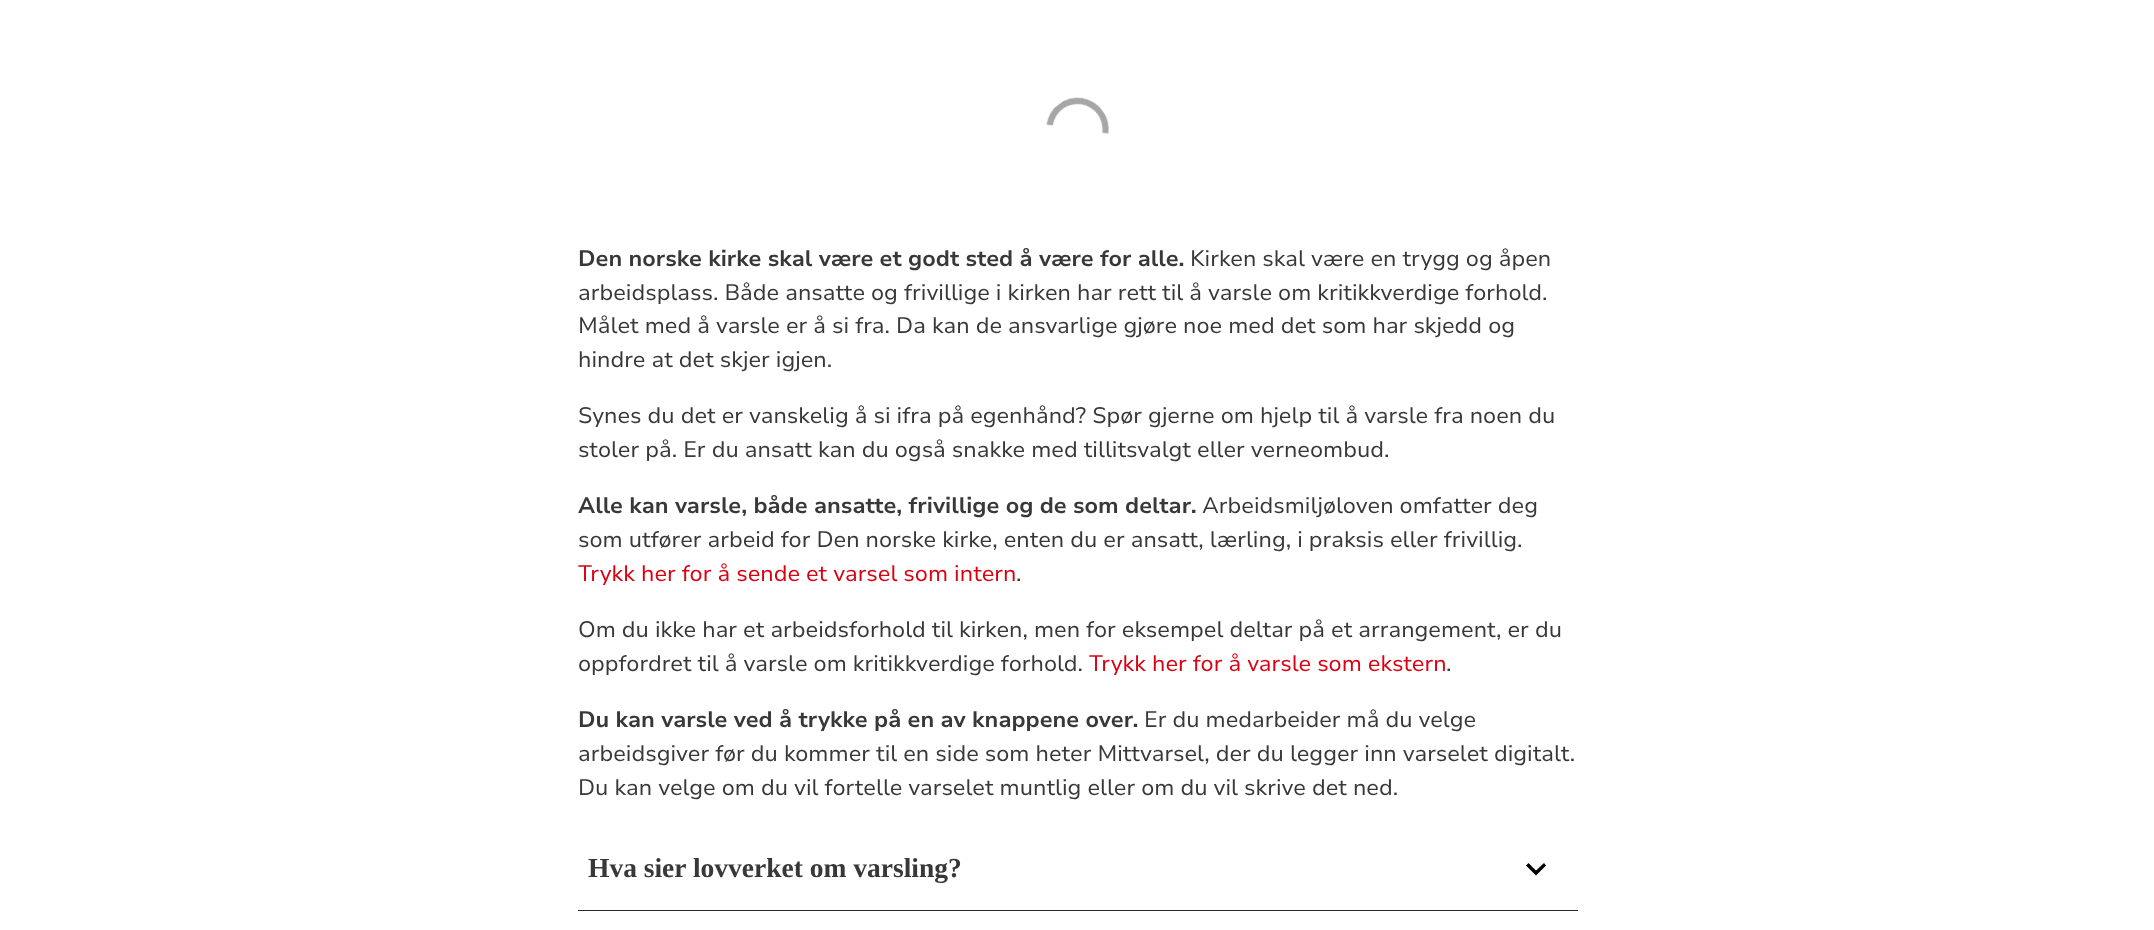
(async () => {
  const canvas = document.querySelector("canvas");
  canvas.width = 2154;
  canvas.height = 930;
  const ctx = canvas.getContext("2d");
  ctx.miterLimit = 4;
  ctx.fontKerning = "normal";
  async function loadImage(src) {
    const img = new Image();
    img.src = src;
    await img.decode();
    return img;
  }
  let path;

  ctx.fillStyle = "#ffffff";
  ctx.fillRect(0, 0, 2154, 930);
  ctx.drawImage(await loadImage("img/1.png"), 1046, 97, 63, 37);
  ctx.fillStyle = "#292929";
  ctx.fillRect(578, 910, 1000, 1);
  ctx.fillStyle = "#000000";
  path = new Path2D("M1528.5 863L1536 870.5L1544 863L1546 865.5L1536 875.5L1526 865.5Z");
  ctx.fill(path);
  ctx.font = "bold 22.5px Nunito Sans";
  ctx.fillStyle = "#393838";
  ctx.fillText("Den norske kirke skal være et godt sted å være for alle.", 578, 266);
  ctx.font = "22.5px Nunito Sans";
  for (const [text, x, y] of [
    ["Kirken skal være en trygg og åpen", 1190, 266],
    ["arbeidsplass. Både ansatte og frivillige i kirken har rett til å varsle om kritikkverdige forhold.", 578, 300],
    ["Målet med å varsle er å si fra. Da kan de ansvarlige gjøre noe med det som har skjedd og", 578, 333],
    ["hindre at det skjer igjen.", 578, 367],
    ["Synes du det er vanskelig å si ifra på egenhånd? Spør gjerne om hjelp til å varsle fra noen du", 578, 423],
    ["stoler på. Er du ansatt kan du også snakke med tillitsvalgt eller verneombud.", 578, 457],
  ]) {
    ctx.fillText(text, x, y);
  }
  ctx.font = "bold 22.5px Nunito Sans";
  ctx.fillText("Alle kan varsle, både ansatte, frivillige og de som deltar.", 578, 513);
  ctx.font = "22.5px Nunito Sans";
  ctx.fillText("Arbeidsmiljøloven omfatter deg", 1202, 513);
  ctx.fillText("som utfører arbeid for Den norske kirke, enten du er ansatt, lærling, i praksis eller frivillig.", 578, 547);
  ctx.fillStyle = "#d90011";
  ctx.fillText("Trykk her for å sende et varsel som intern", 578, 581);
  ctx.fillStyle = "#393838";
  for (const [text, x, y] of [
    [".", 1016, 581],
    ["Om du ikke har et arbeidsforhold til kirken, men for eksempel deltar på et arrangement, er du", 578, 637],
    ["oppfordret til å varsle om kritikkverdige forhold.", 578, 671],
  ]) {
    ctx.fillText(text, x, y);
  }
  ctx.fillStyle = "#d90011";
  ctx.fillText("Trykk her for å varsle som ekstern", 1089, 671);
  ctx.fillStyle = "#393838";
  ctx.fillText(".", 1446, 671);
  ctx.font = "bold 22.5px Nunito Sans";
  ctx.fillText("Du kan varsle ved å trykke på en av knappene over.", 578, 727);
  ctx.font = "22.5px Nunito Sans";
  for (const [text, x, y] of [
    ["Er du medarbeider må du velge", 1144, 727],
    ["arbeidsgiver før du kommer til en side som heter Mittvarsel, der du legger inn varselet digitalt.", 578, 761],
    ["Du kan velge om du vil fortelle varselet muntlig eller om du vil skrive det ned.", 578, 795],
  ]) {
    ctx.fillText(text, x, y);
  }
  ctx.font = "bold 27.5px Liberation Serif";
  ctx.fillText("Hva sier lovverket om varsling?", 588, 877);
})();
